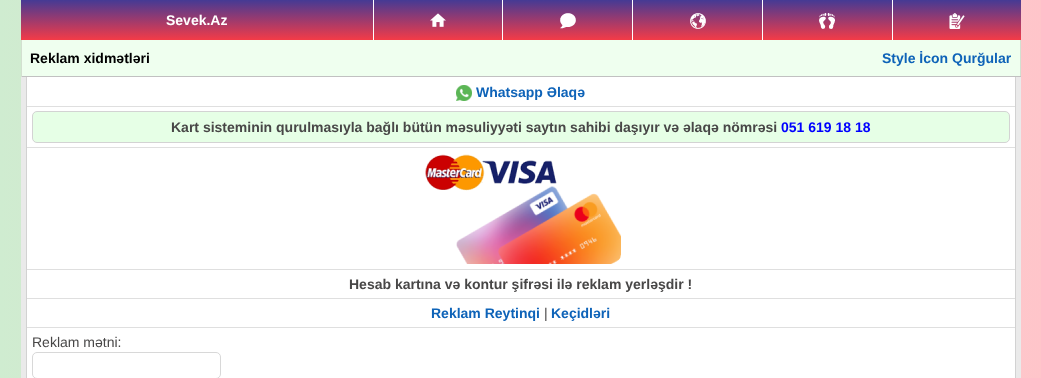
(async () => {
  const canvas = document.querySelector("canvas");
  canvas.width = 1041;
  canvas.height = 378;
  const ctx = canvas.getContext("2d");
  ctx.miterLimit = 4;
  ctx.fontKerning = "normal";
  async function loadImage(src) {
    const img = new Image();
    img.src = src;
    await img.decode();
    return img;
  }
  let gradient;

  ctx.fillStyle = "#ffffff";
  ctx.fillRect(0, 0, 1041, 378);
  gradient = ctx.createLinearGradient(0, 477, 1041, 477);
  gradient.addColorStop(0, "#cfecd0");
  gradient.addColorStop(1, "#ffc5ca");
  ctx.fillStyle = gradient;
  ctx.fillRect(0, 0, 1041, 378);
  gradient = ctx.createLinearGradient(521, 40, 521, 0);
  gradient.addColorStop(0, "#f43b47");
  gradient.addColorStop(1, "#453a94");
  ctx.fillStyle = gradient;
  ctx.fillRect(21, 0, 1000, 40);
  ctx.fillStyle = "#ffffff";
  ctx.fillRect(373, 0, 1, 41);
  ctx.drawImage(await loadImage("img/1.png"), 430, 13, 16, 14);
  ctx.fillRect(502, 0, 1, 41);
  ctx.drawImage(await loadImage("img/2.png"), 560, 13, 16, 16);
  ctx.fillRect(632, 0, 1, 41);
  ctx.drawImage(await loadImage("img/3.png"), 690, 13, 16, 16);
  ctx.fillRect(762, 0, 1, 41);
  ctx.drawImage(await loadImage("img/4.png"), 819, 13, 16, 16);
  ctx.fillRect(892, 0, 1, 41);
  ctx.drawImage(await loadImage("img/5.png"), 949, 13, 16, 16);
  for (const [x, y, w, h, color] of [
    [22, 40, 998, 36, "#efffef"],
    [1020, 40, 1, 37, "#d3e0d0"],
    [21, 76, 1000, 1, "#c1c1c1"],
    [21, 40, 1, 37, "#d3e0d0"],
    [21, 77, 1000, 301, "#eaeaea"],
    [27, 77, 988, 301, "#ffffff"],
    [1015, 77, 1, 301, "#d2d2d2"],
    [26, 77, 1, 301, "#d2d2d2"],
  ]) {
    ctx.fillStyle = color;
    ctx.fillRect(x, y, w, h);
  }
  ctx.drawImage(await loadImage("img/6.png"), 456, 85, 16, 16);
  ctx.fillStyle = "#dfdfdf";
  ctx.fillRect(27, 106, 988, 1);
  ctx.fillStyle = "#e6ffe6";
  ctx.beginPath();
  ctx.roundRect(32.5, 111.5, 977, 31, 4.5);
  ctx.fill();
  ctx.strokeStyle = "#d3d3d3";
  ctx.stroke();
  ctx.fillStyle = "#dfdfdf";
  ctx.fillRect(27, 147, 988, 1);
  ctx.drawImage(await loadImage("img/7.png"), 425, 154, 196, 110);
  for (const [x, y, w, h, color] of [
    [27, 269, 988, 1, "#dfdfdf"],
    [27, 298, 988, 1, "#dfdfdf"],
    [27, 327, 988, 1, "#dfdfdf"],
  ]) {
    ctx.fillStyle = color;
    ctx.fillRect(x, y, w, h);
  }
  ctx.beginPath();
  ctx.roundRect(32.5, 352.5, 188, 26, 4.5);
  ctx.strokeStyle = "#d8d8d8";
  ctx.stroke();
  ctx.font = "bold 14px Liberation Sans";
  ctx.fillStyle = "#ffffff";
  ctx.fillText("Sevek.Az", 166, 25);
  ctx.fillStyle = "#000000";
  ctx.fillText("Reklam xidmətləri", 30, 63);
  ctx.fillStyle = "#0e63b8";
  ctx.fillText("Style İcon Qurğular", 882, 63);
  ctx.fillText("Whatsapp Əlaqə", 476, 97);
  ctx.fillStyle = "#484747";
  ctx.fillText("Kart sisteminin qurulmasıyla bağlı bütün məsuliyyəti saytın sahibi daşıyır və əlaqə nömrəsi", 171, 132);
  ctx.fillStyle = "#0000ff";
  ctx.fillText("051 619 18 18", 781, 132);
  ctx.fillStyle = "#484747";
  ctx.fillText("Hesab kartına və kontur şifrəsi ilə reklam yerləşdir !", 349, 289);
  ctx.fillStyle = "#0e63b8";
  ctx.fillText("Reklam Reytinqi", 431, 318);
  ctx.font = "14px Liberation Sans";
  ctx.fillStyle = "#484747";
  ctx.fillText("|", 544, 318);
  ctx.font = "bold 14px Liberation Sans";
  ctx.fillStyle = "#0e63b8";
  ctx.fillText("Keçidləri", 551, 318);
  ctx.font = "14px Liberation Sans";
  ctx.fillStyle = "#484747";
  ctx.fillText("Reklam mətni:", 32, 347);
})();
